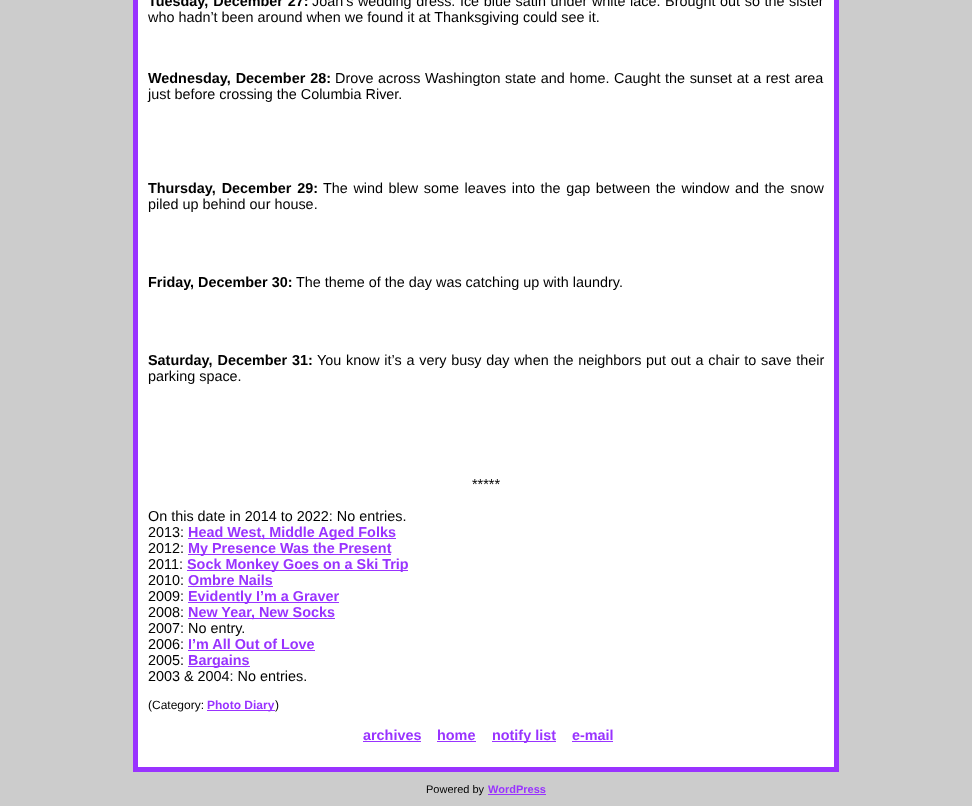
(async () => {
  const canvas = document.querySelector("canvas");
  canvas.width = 972;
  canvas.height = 806;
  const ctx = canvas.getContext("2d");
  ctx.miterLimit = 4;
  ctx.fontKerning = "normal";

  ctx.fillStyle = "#cccccc";
  ctx.fillRect(0, 0, 972, 806);
  ctx.fillStyle = "#ffffff";
  ctx.beginPath();
  ctx.rect(135.5, -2.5, 701, 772);
  ctx.fill();
  ctx.strokeStyle = "#9933ff";
  ctx.lineWidth = 5;
  ctx.stroke();
  for (const [x, y, w, h, color] of [
    [188, 538, 208, 1, "#9933ff"],
    [188, 554, 203, 1, "#9933ff"],
    [187, 570, 221, 1, "#9933ff"],
    [188, 586, 85, 1, "#9933ff"],
    [188, 602, 151, 1, "#9933ff"],
    [188, 618, 147, 1, "#9933ff"],
    [188, 650, 127, 1, "#9933ff"],
    [188, 666, 62, 1, "#9933ff"],
    [207, 710, 68, 1, "#9933ff"],
    [363, 741, 58, 1, "#9933ff"],
    [437, 741, 39, 1, "#9933ff"],
    [492, 741, 64, 1, "#9933ff"],
    [572, 741, 41, 1, "#9933ff"],
    [488, 794, 58, 1, "#9933ff"],
  ]) {
    ctx.fillStyle = color;
    ctx.fillRect(x, y, w, h);
  }
  ctx.wordSpacing = "1px";
  ctx.font = "bold 14.4px Liberation Sans";
  ctx.fillStyle = "#000000";
  ctx.fillText("Tuesday, December 27:", 148, 6);
  ctx.wordSpacing = "0.6px";
  ctx.font = "14.4px Liberation Sans";
  ctx.fillText("Joan’s wedding dress. Ice blue satin under white lace. Brought out so the sister", 312, 6);
  ctx.wordSpacing = "0px";
  ctx.fillText("who hadn’t been around when we found it at Thanksgiving could see it.", 148, 22);
  ctx.wordSpacing = "1px";
  ctx.font = "bold 14.4px Liberation Sans";
  ctx.fillText("Wednesday, December 28:", 148, 83);
  ctx.wordSpacing = "0.6px";
  ctx.font = "14.4px Liberation Sans";
  ctx.fillText("Drove across Washington state and home. Caught the sunset at a rest area", 335, 83);
  ctx.wordSpacing = "0px";
  ctx.fillText("just before crossing the Columbia River.", 148, 99);
  ctx.wordSpacing = "2px";
  ctx.font = "bold 14.4px Liberation Sans";
  ctx.fillText("Thursday, December 29:", 148, 193);
  ctx.wordSpacing = "1.6px";
  ctx.font = "14.4px Liberation Sans";
  ctx.fillText("The wind blew some leaves into the gap between the window and the snow", 323, 193);
  ctx.wordSpacing = "0px";
  ctx.fillText("piled up behind our house.", 148, 209);
  ctx.font = "bold 14.4px Liberation Sans";
  ctx.fillText("Friday, December 30:", 148, 287);
  ctx.font = "14.4px Liberation Sans";
  ctx.fillText("The theme of the day was catching up with laundry.", 296, 287);
  ctx.wordSpacing = "1px";
  ctx.font = "bold 14.4px Liberation Sans";
  ctx.fillText("Saturday, December 31:", 148, 365);
  ctx.wordSpacing = "0.75px";
  ctx.font = "14.4px Liberation Sans";
  ctx.fillText("You know it’s a very busy day when the neighbors put out a chair to save their", 317, 365);
  ctx.wordSpacing = "0px";
  for (const [text, x, y] of [
    ["parking space.", 148, 381],
    ["*****", 472, 489],
    ["On this date in 2014 to 2022: No entries.", 148, 521],
    ["2013:", 148, 537],
  ]) {
    ctx.fillText(text, x, y);
  }
  ctx.font = "bold 14.4px Liberation Sans";
  ctx.fillStyle = "#9933ff";
  ctx.fillText("Head West, Middle Aged Folks", 188, 537);
  ctx.font = "14.4px Liberation Sans";
  ctx.fillStyle = "#000000";
  ctx.fillText("2012:", 148, 553);
  ctx.font = "bold 14.4px Liberation Sans";
  ctx.fillStyle = "#9933ff";
  ctx.fillText("My Presence Was the Present", 188, 553);
  ctx.font = "14.4px Liberation Sans";
  ctx.fillStyle = "#000000";
  ctx.fillText("2011:", 148, 569);
  ctx.font = "bold 14.4px Liberation Sans";
  ctx.fillStyle = "#9933ff";
  ctx.fillText("Sock Monkey Goes on a Ski Trip", 187, 569);
  ctx.font = "14.4px Liberation Sans";
  ctx.fillStyle = "#000000";
  ctx.fillText("2010:", 148, 585);
  ctx.font = "bold 14.4px Liberation Sans";
  ctx.fillStyle = "#9933ff";
  ctx.fillText("Ombre Nails", 188, 585);
  ctx.font = "14.4px Liberation Sans";
  ctx.fillStyle = "#000000";
  ctx.fillText("2009:", 148, 601);
  ctx.font = "bold 14.4px Liberation Sans";
  ctx.fillStyle = "#9933ff";
  ctx.fillText("Evidently I’m a Graver", 188, 601);
  ctx.font = "14.4px Liberation Sans";
  ctx.fillStyle = "#000000";
  ctx.fillText("2008:", 148, 617);
  ctx.font = "bold 14.4px Liberation Sans";
  ctx.fillStyle = "#9933ff";
  ctx.fillText("New Year, New Socks", 188, 617);
  ctx.font = "14.4px Liberation Sans";
  ctx.fillStyle = "#000000";
  ctx.fillText("2007: No entry.", 148, 633);
  ctx.fillText("2006:", 148, 649);
  ctx.font = "bold 14.4px Liberation Sans";
  ctx.fillStyle = "#9933ff";
  ctx.fillText("I’m All Out of Love", 188, 649);
  ctx.font = "14.4px Liberation Sans";
  ctx.fillStyle = "#000000";
  ctx.fillText("2005:", 148, 665);
  ctx.font = "bold 14.4px Liberation Sans";
  ctx.fillStyle = "#9933ff";
  ctx.fillText("Bargains", 188, 665);
  ctx.font = "14.4px Liberation Sans";
  ctx.fillStyle = "#000000";
  ctx.fillText("2003 & 2004: No entries.", 148, 681);
  ctx.font = "12px Liberation Sans";
  ctx.fillText("(Category:", 148, 709);
  ctx.font = "bold 12px Liberation Sans";
  ctx.fillStyle = "#9933ff";
  ctx.fillText("Photo Diary", 207, 709);
  ctx.font = "12px Liberation Sans";
  ctx.fillStyle = "#000000";
  ctx.fillText(")", 275, 709);
  ctx.font = "bold 14.4px Liberation Sans";
  ctx.fillStyle = "#9933ff";
  for (const [text, x, y] of [
    ["archives", 363, 740],
    ["home", 437, 740],
    ["notify list", 492, 740],
    ["e-mail", 572, 740],
  ]) {
    ctx.fillText(text, x, y);
  }
  ctx.font = "11px Liberation Sans";
  ctx.fillStyle = "#000000";
  ctx.fillText("Powered by", 426, 793);
  ctx.font = "bold 11px Liberation Sans";
  ctx.fillStyle = "#9933ff";
  ctx.fillText("WordPress", 488, 793);
})();
